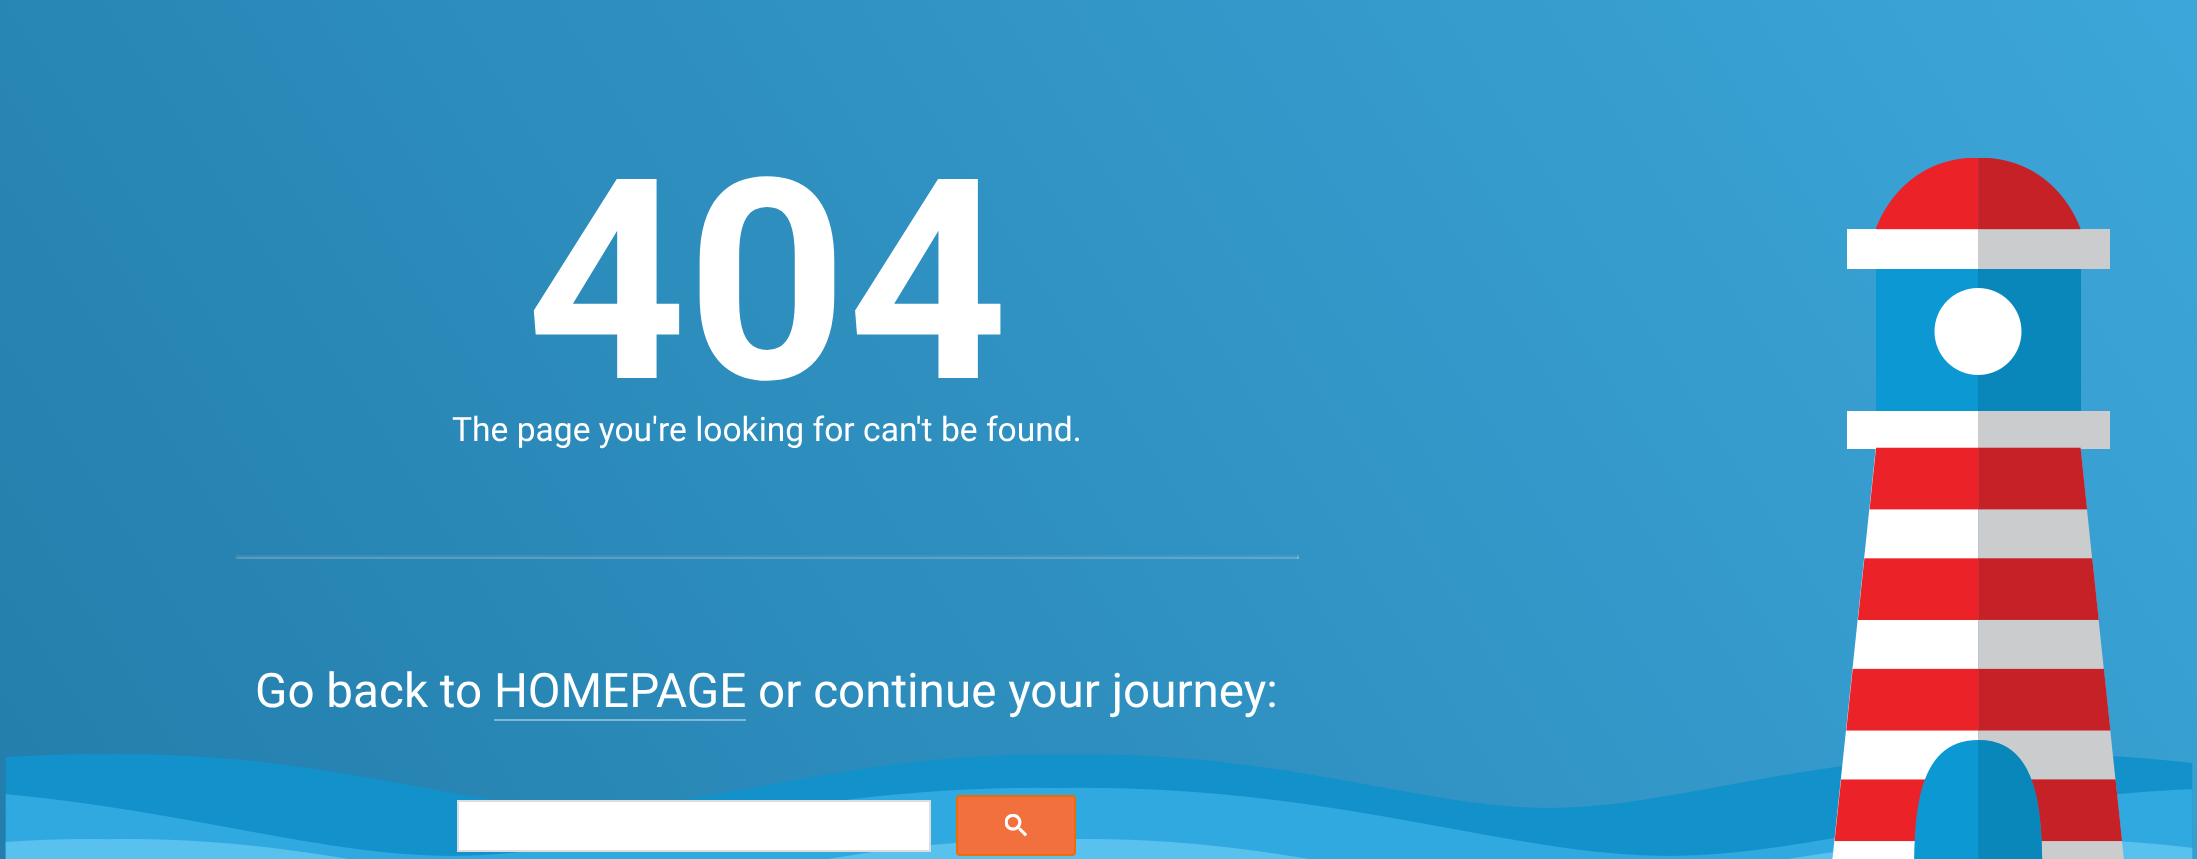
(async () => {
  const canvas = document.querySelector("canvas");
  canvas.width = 2197;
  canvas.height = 859;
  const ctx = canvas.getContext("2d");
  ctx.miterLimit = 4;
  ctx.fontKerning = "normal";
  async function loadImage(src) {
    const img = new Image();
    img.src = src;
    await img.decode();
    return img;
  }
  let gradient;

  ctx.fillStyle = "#ffffff";
  ctx.fillRect(0, 0, 2197, 859);
  gradient = ctx.createLinearGradient(1038, 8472, 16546, -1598);
  gradient.addColorStop(0, "#004569");
  gradient.addColorStop(0.33, "#42afe4");
  gradient.addColorStop(0.67, "#004569");
  gradient.addColorStop(1, "#407890");
  ctx.fillStyle = gradient;
  ctx.fillRect(0, 0, 2197, 859);
  gradient = ctx.createLinearGradient(1038, 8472, 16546, -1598);
  gradient.addColorStop(0, "#336a87");
  gradient.addColorStop(0.33, "#68bfe9");
  gradient.addColorStop(0.67, "#336a87");
  gradient.addColorStop(1, "#6693a6");
  ctx.fillStyle = gradient;
  ctx.fillRect(235, 557, 1064, 2);
  gradient = ctx.createLinearGradient(1038, 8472, 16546, -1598);
  gradient.addColorStop(0, "#205774");
  gradient.addColorStop(0.33, "#55acd6");
  gradient.addColorStop(0.67, "#205774");
  gradient.addColorStop(1, "#538093");
  ctx.fillStyle = gradient;
  ctx.fillRect(235, 555, 1064, 2);
  gradient = ctx.createLinearGradient(1038, 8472, 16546, -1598);
  gradient.addColorStop(0, "#668fa5");
  gradient.addColorStop(0.33, "#8ecfef");
  gradient.addColorStop(0.67, "#668fa5");
  gradient.addColorStop(1, "#8caebc");
  ctx.fillStyle = gradient;
  ctx.fillRect(494, 719, 252, 2);
  ctx.drawImage(await loadImage("img/1.png"), 5, 754, 2188, 105);
  for (const [x, y, w, h, color] of [
    [1297, 555, 2, 4, "#57a6cc"],
    [1297, 557, 2, 2, "#79b8d6"],
    [235, 555, 2, 4, "#3f89ae"],
  ]) {
    ctx.fillStyle = color;
    ctx.fillRect(x, y, w, h);
  }
  ctx.fillStyle = "#ffffff";
  ctx.beginPath();
  ctx.rect(458, 801, 472, 50);
  ctx.fill();
  ctx.strokeStyle = "#dddddd";
  ctx.lineWidth = 2;
  ctx.stroke();
  ctx.fillStyle = "#f2703d";
  ctx.beginPath();
  ctx.roundRect(957, 796, 118, 59, 3);
  ctx.fill();
  ctx.strokeStyle = "#ee6c06";
  ctx.stroke();
  ctx.drawImage(await loadImage("img/2.png"), 1005, 814, 22, 23);
  ctx.drawImage(await loadImage("img/3.png"), 1832, 158, 292, 701);
  ctx.font = "bold 280px Roboto";
  ctx.fillStyle = "#ffffff";
  ctx.fillText("404", 526, 378);
  ctx.font = "33.6px Roboto";
  ctx.fillText("The page you're looking for can't be found.", 452, 441);
  ctx.font = "47.6px Roboto";
  ctx.fillText("Go back to HOMEPAGE or continue your journey:", 255, 707);
})();
